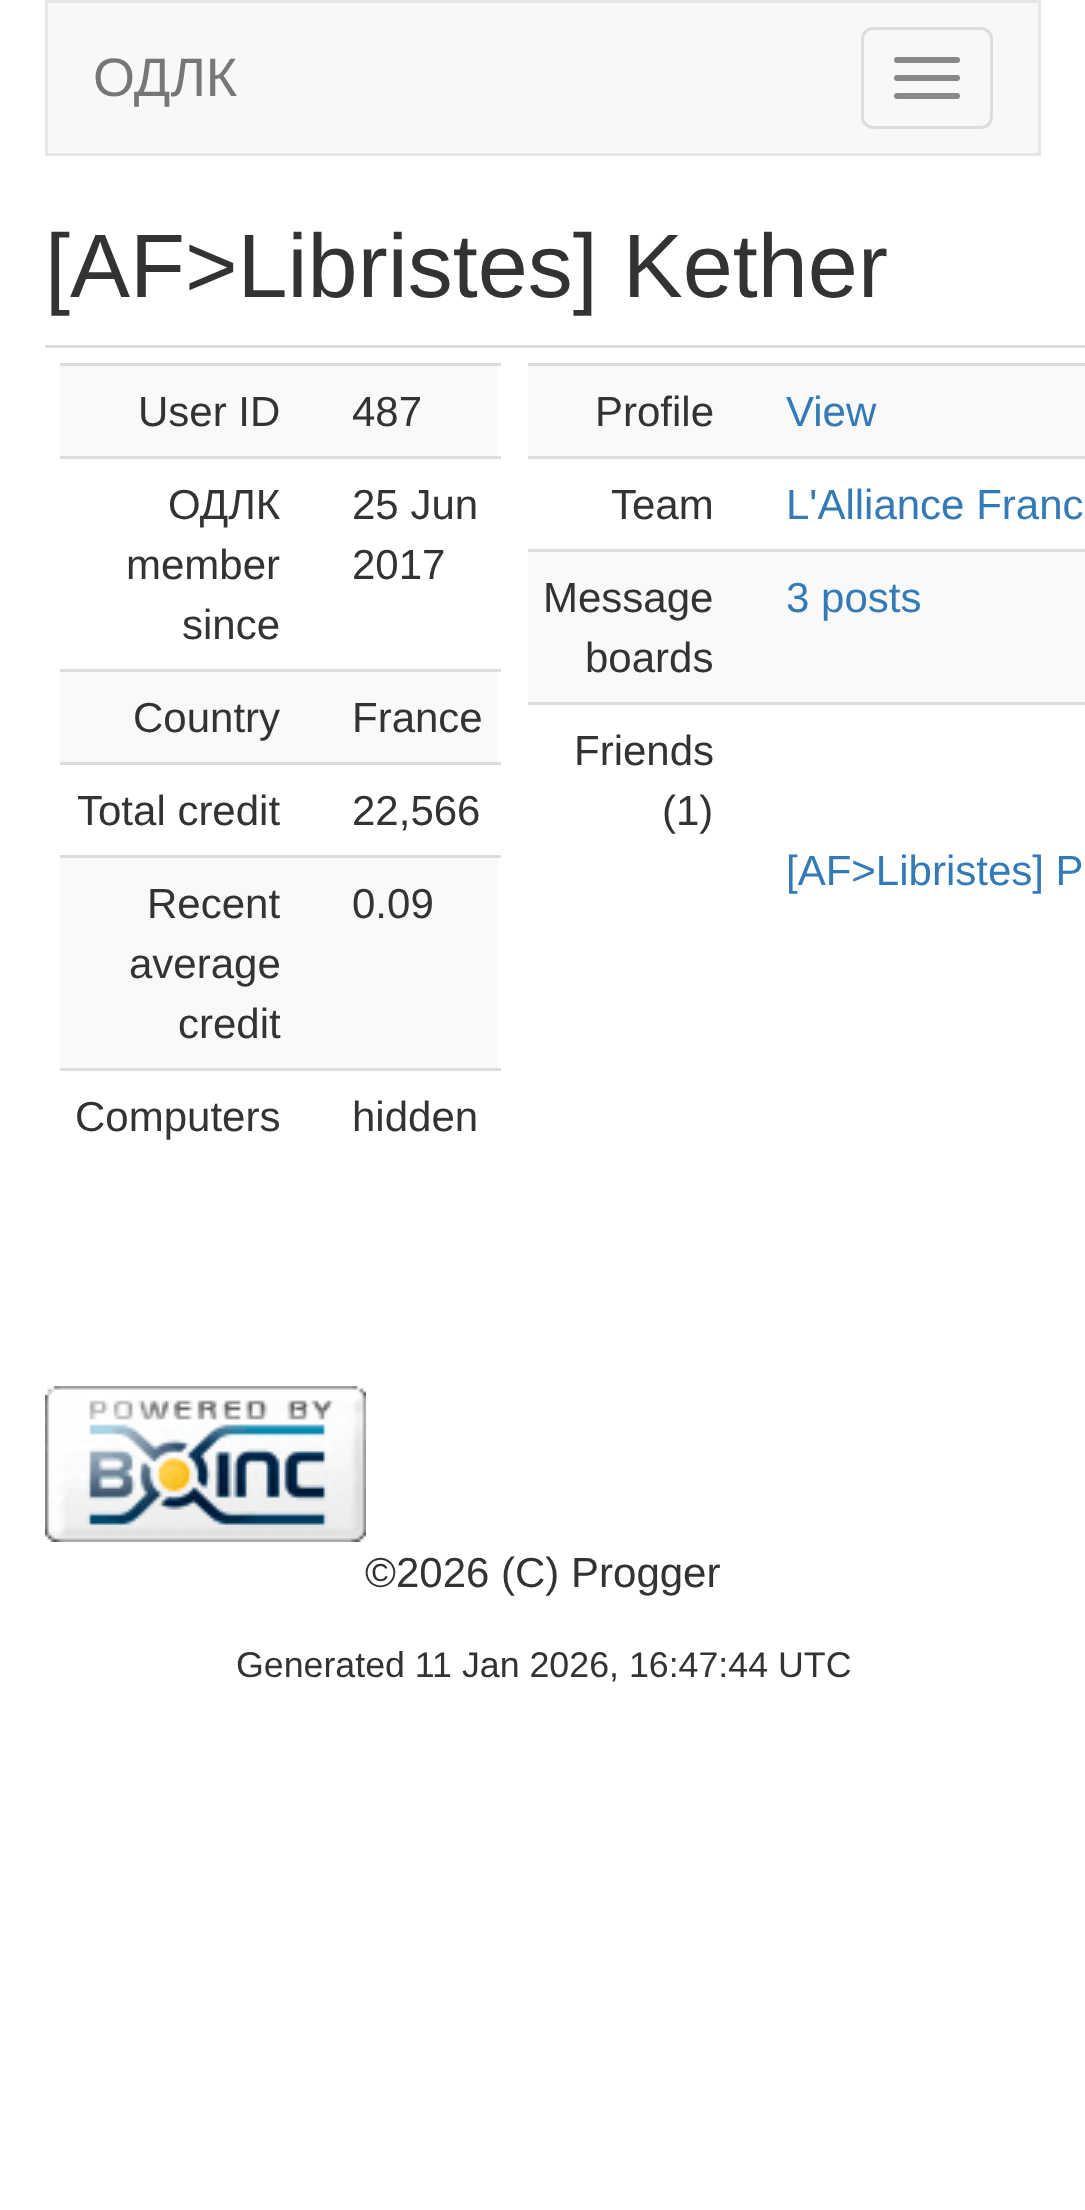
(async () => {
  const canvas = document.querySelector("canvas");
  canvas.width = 1085;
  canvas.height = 2210;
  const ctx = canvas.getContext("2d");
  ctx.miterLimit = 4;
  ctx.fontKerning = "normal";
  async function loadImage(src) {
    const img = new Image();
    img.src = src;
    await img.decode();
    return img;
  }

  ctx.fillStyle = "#ffffff";
  ctx.fillRect(0, 0, 1085, 2210);
  ctx.fillStyle = "#f8f8f8";
  ctx.beginPath();
  ctx.rect(46.5, 1.5, 993, 153);
  ctx.fill();
  ctx.strokeStyle = "#e7e7e7";
  ctx.lineWidth = 3;
  ctx.stroke();
  ctx.beginPath();
  ctx.roundRect(862.5, 28.5, 129, 99, 10.5);
  ctx.strokeStyle = "#dddddd";
  ctx.stroke();
  ctx.fillStyle = "#888888";
  ctx.beginPath();
  ctx.roundRect(894, 57, 66, 6, 3);
  ctx.fill();
  ctx.beginPath();
  ctx.roundRect(894, 75, 66, 6, 3);
  ctx.fill();
  ctx.beginPath();
  ctx.roundRect(894, 93, 66, 6, 3);
  ctx.fill();
  for (const [x, y, w, h, color] of [
    [60, 366, 438, 90, "#f9f9f9"],
    [60, 363, 441, 3, "#dddddd"],
    [60, 456, 441, 3, "#dddddd"],
    [60, 672, 438, 90, "#f9f9f9"],
    [60, 669, 441, 3, "#dddddd"],
    [60, 762, 441, 3, "#dddddd"],
    [60, 858, 438, 210, "#f9f9f9"],
    [60, 855, 441, 3, "#dddddd"],
    [60, 1068, 441, 3, "#dddddd"],
    [45, 345, 1040, 3, "#dddddd"],
    [528, 366, 557, 90, "#f9f9f9"],
    [528, 363, 557, 3, "#dddddd"],
    [528, 456, 557, 3, "#dddddd"],
    [528, 552, 557, 150, "#f9f9f9"],
    [528, 549, 557, 3, "#dddddd"],
    [528, 702, 557, 3, "#dddddd"],
  ]) {
    ctx.fillStyle = color;
    ctx.fillRect(x, y, w, h);
  }
  ctx.drawImage(await loadImage("img/1.png"), 45, 1386, 321, 156);
  ctx.font = "54px Liberation Sans";
  ctx.fillStyle = "#777777";
  ctx.fillText("ОДЛК", 93, 96);
  ctx.font = "90px Liberation Sans";
  ctx.fillStyle = "#333333";
  ctx.fillText("[AF>Libristes] Kether", 45, 297);
  ctx.font = "42px Liberation Sans";
  for (const [text, x, y] of [
    ["User ID", 138, 426],
    ["487", 352, 426],
    ["ОДЛК", 168, 519],
    ["member", 126, 579],
    ["since", 182, 639],
    ["25 Jun", 352, 519],
    ["2017", 352, 579],
    ["Country", 133, 732],
    ["France", 352, 732],
    ["Total credit", 77, 825],
    ["22,566", 352, 825],
    ["Recent", 147, 918],
    ["average", 129, 978],
    ["credit", 178, 1038],
    ["0.09", 352, 918],
    ["Computers", 75, 1131],
    ["hidden", 352, 1131],
    ["Profile", 595, 426],
  ]) {
    ctx.fillText(text, x, y);
  }
  ctx.fillStyle = "#337ab7";
  ctx.fillText("View", 786, 426);
  ctx.fillStyle = "#333333";
  ctx.fillText("Team", 611, 519);
  ctx.fillStyle = "#337ab7";
  ctx.fillText("L'Alliance Franc", 786, 519);
  ctx.fillStyle = "#333333";
  ctx.fillText("Message", 543, 612);
  ctx.fillText("boards", 585, 672);
  ctx.fillStyle = "#337ab7";
  ctx.fillText("3 posts", 786, 612);
  ctx.fillStyle = "#333333";
  ctx.fillText("Friends", 574, 765);
  ctx.fillText("(1)", 662, 825);
  ctx.fillStyle = "#337ab7";
  ctx.fillText("[AF>Libristes] P", 786, 885);
  ctx.fillStyle = "#333333";
  ctx.fillText("©2026 (C) Progger", 365, 1587);
  ctx.font = "35.75px Liberation Sans";
  ctx.fillText("Generated 11 Jan 2026, 16:47:44 UTC", 236, 1677);
})();
